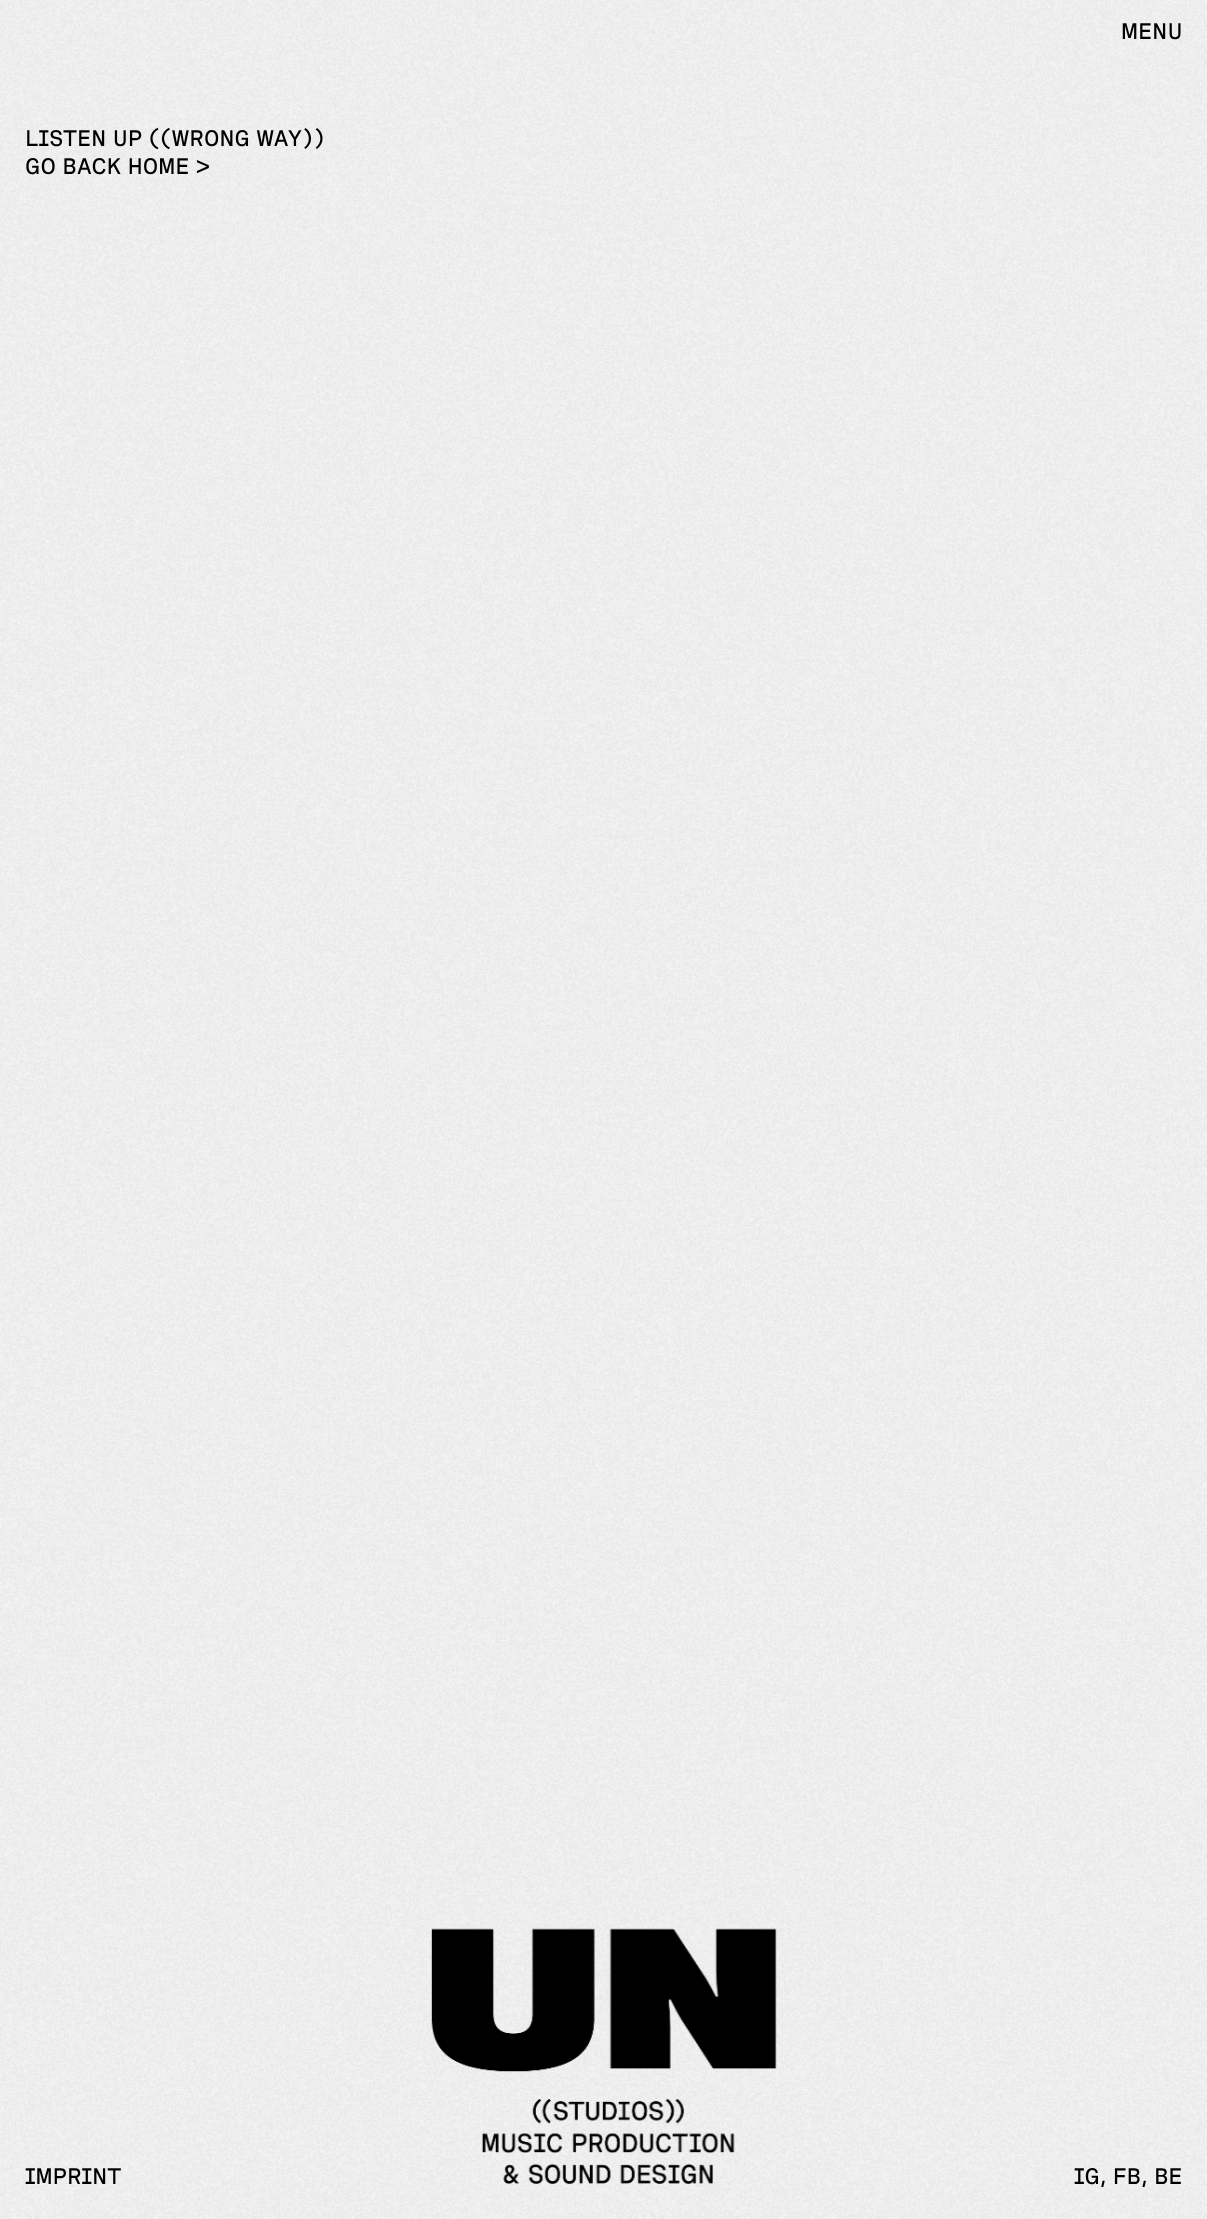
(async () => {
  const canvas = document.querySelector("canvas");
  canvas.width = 1207;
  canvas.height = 2219;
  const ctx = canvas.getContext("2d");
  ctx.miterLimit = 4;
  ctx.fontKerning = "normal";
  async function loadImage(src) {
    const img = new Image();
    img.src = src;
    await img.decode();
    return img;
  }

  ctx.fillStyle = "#ffffff";
  ctx.fillRect(0, 0, 1207, 2219);
  ctx.drawImage(await loadImage("img/1.png"), 0, 0, 1207, 2219);
  ctx.drawImage(await loadImage("img/2.png"), 431, 1928, 346, 256);
  ctx.font = "500 22.5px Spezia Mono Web";
  ctx.fillStyle = "#000000";
  ctx.fillText("MENU", 1121, 39);
  ctx.letterSpacing = "-0.1px";
  for (const [text, x, y] of [
    ["LISTEN UP ((WRONG WAY))", 25, 146],
    ["GO BACK HOME >", 25, 174],
    ["IMPRINT", 25, 2184],
    ["IG, FB, BE", 1074, 2184],
  ]) {
    ctx.fillText(text, x, y);
  }
})();
